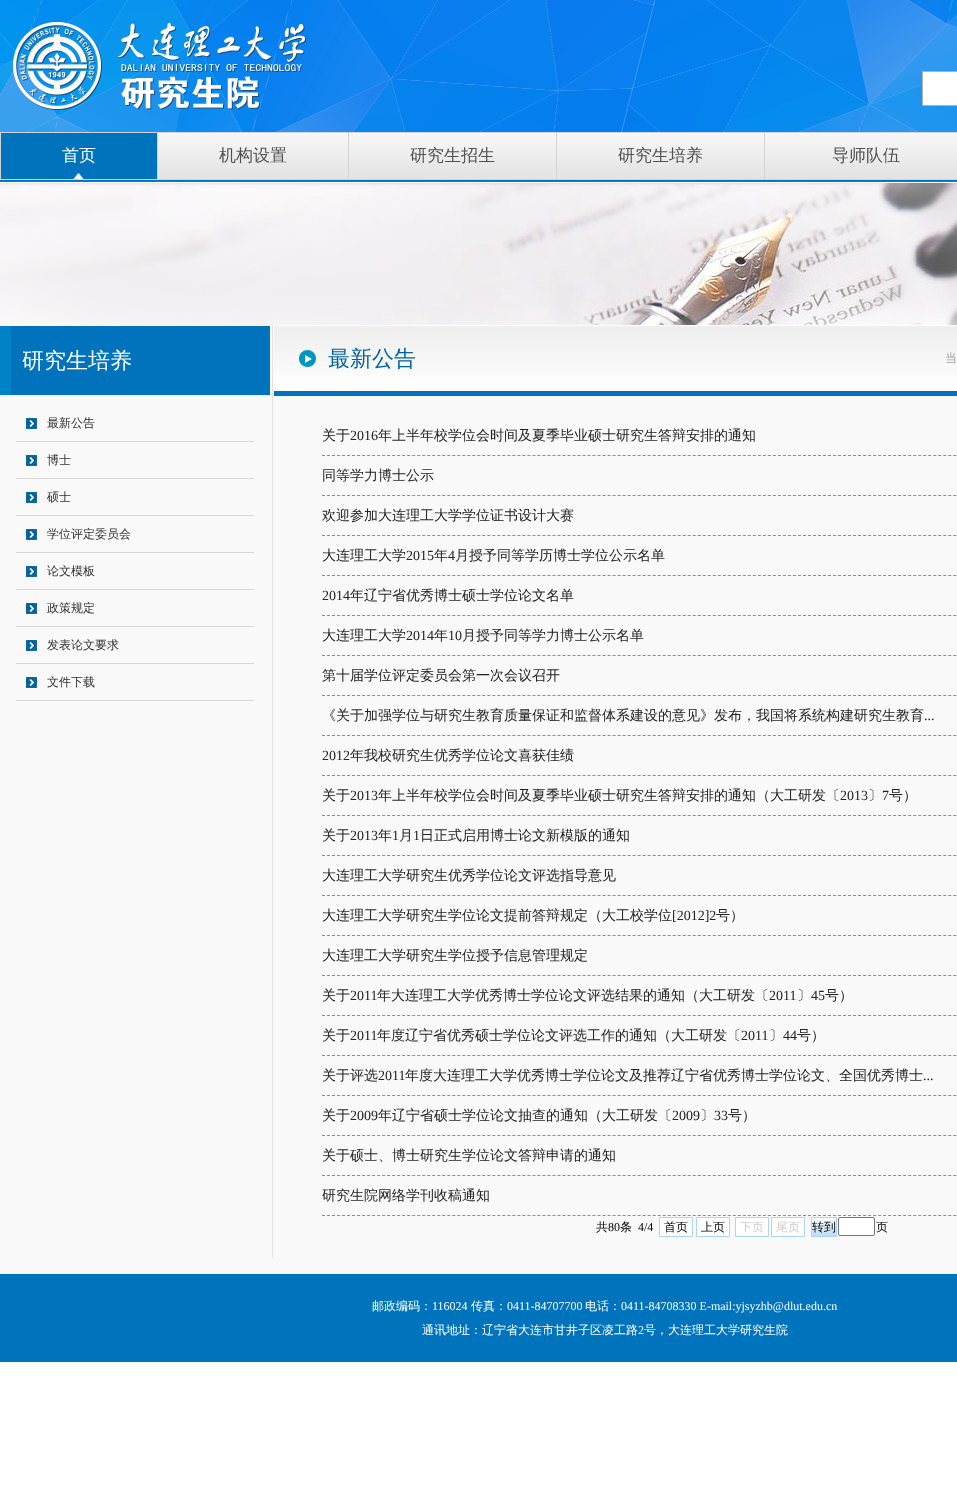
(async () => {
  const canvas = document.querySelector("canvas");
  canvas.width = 957;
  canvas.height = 1496;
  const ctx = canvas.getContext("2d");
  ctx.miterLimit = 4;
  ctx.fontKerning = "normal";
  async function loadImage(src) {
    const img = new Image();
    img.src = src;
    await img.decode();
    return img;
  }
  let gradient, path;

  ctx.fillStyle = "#ffffff";
  ctx.fillRect(0, 0, 957, 1496);
  ctx.drawImage(await loadImage("img/1.png"), 0, 0, 957, 182);
  ctx.drawImage(await loadImage("img/2.png"), 13, 22, 293, 88);
  ctx.beginPath();
  ctx.rect(922.5, 71.5, 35, 34);
  ctx.fill();
  ctx.strokeStyle = "#aeb2b5";
  ctx.stroke();
  ctx.drawImage(await loadImage("img/3.png"), 158, 133, 799, 46);
  ctx.strokeStyle = "#d4d4d4";
  ctx.strokeRect(0.5, 132.5, 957, 47);
  ctx.fillStyle = "#d4d4d4";
  ctx.fillRect(157, 133, 1, 46);
  ctx.fillStyle = "#0073bd";
  ctx.fillRect(1, 133, 156, 46);
  ctx.drawImage(await loadImage("img/4.png"), 73, 173, 11, 6);
  for (const [x, y, w, h, color] of [
    [348, 133, 1, 46, "#d4d4d4"],
    [556, 133, 1, 46, "#d4d4d4"],
    [764, 133, 1, 46, "#d4d4d4"],
    [0, 326, 957, 948, "#f9f9f9"],
  ]) {
    ctx.fillStyle = color;
    ctx.fillRect(x, y, w, h);
  }
  ctx.drawImage(await loadImage("img/5.png"), 0, 183, 957, 143);
  ctx.drawImage(await loadImage("img/6.png"), 0, 326, 270, 69);
  ctx.fillStyle = "#d8d8d8";
  ctx.fillRect(16, 441, 238, 1);
  ctx.drawImage(await loadImage("img/7.png"), 26, 418, 11, 11);
  ctx.fillRect(16, 478, 238, 1);
  ctx.drawImage(await loadImage("img/7.png"), 26, 455, 11, 11);
  ctx.fillRect(16, 515, 238, 1);
  ctx.drawImage(await loadImage("img/7.png"), 26, 492, 11, 11);
  ctx.fillRect(16, 552, 238, 1);
  ctx.drawImage(await loadImage("img/7.png"), 26, 529, 11, 11);
  ctx.fillRect(16, 589, 238, 1);
  ctx.drawImage(await loadImage("img/7.png"), 26, 566, 11, 11);
  ctx.fillRect(16, 626, 238, 1);
  ctx.drawImage(await loadImage("img/7.png"), 26, 603, 11, 11);
  ctx.fillRect(16, 663, 238, 1);
  ctx.drawImage(await loadImage("img/7.png"), 26, 640, 11, 11);
  ctx.fillRect(16, 700, 238, 1);
  ctx.drawImage(await loadImage("img/7.png"), 26, 677, 11, 11);
  ctx.fillStyle = "#e3e3e3";
  ctx.fillRect(272, 326, 1, 932);
  ctx.drawImage(await loadImage("img/8.png"), 274, 326, 683, 65);
  ctx.fillStyle = "#0073bd";
  ctx.fillRect(274, 391, 683, 5);
  ctx.drawImage(await loadImage("img/9.png"), 299, 350, 17, 17);
  path = new Path2D("M322 455.5H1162");
  ctx.strokeStyle = "#8d8d8d";
  ctx.setLineDash([3, 2.01]);
  ctx.stroke(path);
  path = new Path2D("M322 495.5H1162");
  ctx.stroke(path);
  path = new Path2D("M322 535.5H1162");
  ctx.stroke(path);
  path = new Path2D("M322 575.5H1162");
  ctx.stroke(path);
  path = new Path2D("M322 615.5H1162");
  ctx.stroke(path);
  path = new Path2D("M322 655.5H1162");
  ctx.stroke(path);
  path = new Path2D("M322 695.5H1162");
  ctx.stroke(path);
  path = new Path2D("M322 735.5H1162");
  ctx.stroke(path);
  path = new Path2D("M322 775.5H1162");
  ctx.stroke(path);
  path = new Path2D("M322 815.5H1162");
  ctx.stroke(path);
  path = new Path2D("M322 855.5H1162");
  ctx.stroke(path);
  path = new Path2D("M322 895.5H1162");
  ctx.stroke(path);
  path = new Path2D("M322 935.5H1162");
  ctx.stroke(path);
  path = new Path2D("M322 975.5H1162");
  ctx.stroke(path);
  path = new Path2D("M322 1015.5H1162");
  ctx.stroke(path);
  path = new Path2D("M322 1055.5H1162");
  ctx.stroke(path);
  path = new Path2D("M322 1095.5H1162");
  ctx.stroke(path);
  path = new Path2D("M322 1135.5H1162");
  ctx.stroke(path);
  path = new Path2D("M322 1175.5H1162");
  ctx.stroke(path);
  path = new Path2D("M322 1215.5H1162");
  ctx.stroke(path);
  ctx.fillStyle = "#ffffff";
  ctx.beginPath();
  ctx.rect(659.5, 1217.5, 33, 19);
  ctx.fill();
  ctx.strokeStyle = "#afd5f5";
  ctx.setLineDash([]);
  ctx.stroke();
  ctx.beginPath();
  ctx.rect(696.5, 1217.5, 33, 19);
  ctx.fill();
  ctx.stroke();
  ctx.beginPath();
  ctx.rect(735.5, 1217.5, 33, 19);
  ctx.fill();
  ctx.stroke();
  ctx.beginPath();
  ctx.rect(771.5, 1217.5, 33, 19);
  ctx.fill();
  ctx.stroke();
  gradient = ctx.createLinearGradient(812, 1218, 812, 1236);
  gradient.addColorStop(0, "#ffffff");
  gradient.addColorStop(1, "#bddbf7");
  ctx.fillStyle = gradient;
  ctx.fillRect(812, 1218, 24, 18);
  ctx.strokeRect(811.5, 1217.5, 25, 19);
  ctx.fillStyle = "#ffffff";
  ctx.beginPath();
  ctx.roundRect(838.5, 1217.5, 36, 18, 1.5);
  ctx.fill();
  ctx.strokeStyle = "#767676";
  ctx.stroke();
  ctx.fillStyle = "#0073bd";
  ctx.fillRect(0, 1274, 957, 88);
  ctx.font = "500 17px WenQuanYi Zen Hei";
  ctx.fillStyle = "#ffffff";
  ctx.fillText("首页", 62, 161);
  ctx.fillStyle = "#515151";
  for (const [text, x, y] of [
    ["机构设置", 219, 161],
    ["研究生招生", 410, 161],
    ["研究生培养", 618, 161],
    ["导师队伍", 832, 161],
  ]) {
    ctx.fillText(text, x, y);
  }
  ctx.font = "500 22px WenQuanYi Zen Hei";
  ctx.fillStyle = "#ffffff";
  ctx.fillText("研究生培养", 22, 368);
  ctx.font = "500 12px WenQuanYi Zen Hei";
  ctx.fillStyle = "#2f2f2f";
  for (const [text, x, y] of [
    ["最新公告", 47, 427],
    ["博士", 47, 464],
    ["硕士", 47, 501],
    ["学位评定委员会", 47, 538],
    ["论文模板", 47, 575],
    ["政策规定", 47, 612],
    ["发表论文要求", 47, 649],
    ["文件下载", 47, 686],
  ]) {
    ctx.fillText(text, x, y);
  }
  ctx.font = "500 22px WenQuanYi Zen Hei";
  ctx.fillStyle = "#0062a1";
  ctx.fillText("最新公告", 328, 366);
  ctx.font = "500 12px WenQuanYi Zen Hei";
  ctx.fillStyle = "#a1a1a1";
  ctx.fillText("当", 945, 362);
  ctx.font = "500 14px WenQuanYi Zen Hei";
  ctx.fillStyle = "#222222";
  ctx.fillText("关于", 322, 440);
  ctx.font = "14px Liberation Serif";
  ctx.fillText("2016", 350, 440);
  ctx.font = "500 14px WenQuanYi Zen Hei";
  for (const [text, x, y] of [
    ["年上半年校学位会时间及夏季毕业硕士研究生答辩安排的通知", 378, 440],
    ["同等学力博士公示", 322, 480],
    ["欢迎参加大连理工大学学位证书设计大赛", 322, 520],
    ["大连理工大学", 322, 560],
  ]) {
    ctx.fillText(text, x, y);
  }
  ctx.font = "14px Liberation Serif";
  ctx.fillText("2015", 406, 560);
  ctx.font = "500 14px WenQuanYi Zen Hei";
  ctx.fillText("年", 434, 560);
  ctx.font = "14px Liberation Serif";
  ctx.fillText("4", 448, 560);
  ctx.font = "500 14px WenQuanYi Zen Hei";
  ctx.fillText("月授予同等学历博士学位公示名单", 455, 560);
  ctx.font = "14px Liberation Serif";
  ctx.fillText("2014", 322, 600);
  ctx.font = "500 14px WenQuanYi Zen Hei";
  ctx.fillText("年辽宁省优秀博士硕士学位论文名单", 350, 600);
  ctx.fillText("大连理工大学", 322, 640);
  ctx.font = "14px Liberation Serif";
  ctx.fillText("2014", 406, 640);
  ctx.font = "500 14px WenQuanYi Zen Hei";
  ctx.fillText("年", 434, 640);
  ctx.font = "14px Liberation Serif";
  ctx.fillText("10", 448, 640);
  ctx.font = "500 14px WenQuanYi Zen Hei";
  for (const [text, x, y] of [
    ["月授予同等学力博士公示名单", 462, 640],
    ["第十届学位评定委员会第一次会议召开", 322, 680],
    ["《关于加强学位与研究生教育质量保证和监督体系建设的意见》发布，我国将系统构建研究生教育", 322, 720],
  ]) {
    ctx.fillText(text, x, y);
  }
  ctx.font = "14px Liberation Serif";
  ctx.fillText("...", 924, 720);
  ctx.fillText("2012", 322, 760);
  ctx.font = "500 14px WenQuanYi Zen Hei";
  ctx.fillText("年我校研究生优秀学位论文喜获佳绩", 350, 760);
  ctx.fillText("关于", 322, 800);
  ctx.font = "14px Liberation Serif";
  ctx.fillText("2013", 350, 800);
  ctx.font = "500 14px WenQuanYi Zen Hei";
  ctx.fillText("年上半年校学位会时间及夏季毕业硕士研究生答辩安排的通知（大工研发〔", 378, 800);
  ctx.font = "14px Liberation Serif";
  ctx.fillText("2013", 840, 800);
  ctx.font = "500 14px WenQuanYi Zen Hei";
  ctx.fillText("〕", 868, 800);
  ctx.font = "14px Liberation Serif";
  ctx.fillText("7", 882, 800);
  ctx.font = "500 14px WenQuanYi Zen Hei";
  ctx.fillText("号）", 889, 800);
  ctx.fillText("关于", 322, 840);
  ctx.font = "14px Liberation Serif";
  ctx.fillText("2013", 350, 840);
  ctx.font = "500 14px WenQuanYi Zen Hei";
  ctx.fillText("年", 378, 840);
  ctx.font = "14px Liberation Serif";
  ctx.fillText("1", 392, 840);
  ctx.font = "500 14px WenQuanYi Zen Hei";
  ctx.fillText("月", 399, 840);
  ctx.font = "14px Liberation Serif";
  ctx.fillText("1", 413, 840);
  ctx.font = "500 14px WenQuanYi Zen Hei";
  for (const [text, x, y] of [
    ["日正式启用博士论文新模版的通知", 420, 840],
    ["大连理工大学研究生优秀学位论文评选指导意见", 322, 880],
    ["大连理工大学研究生学位论文提前答辩规定（大工校学位", 322, 920],
  ]) {
    ctx.fillText(text, x, y);
  }
  ctx.font = "14px Liberation Serif";
  ctx.fillText("[2012]2", 672, 920);
  ctx.font = "500 14px WenQuanYi Zen Hei";
  for (const [text, x, y] of [
    ["号）", 716, 920],
    ["大连理工大学研究生学位授予信息管理规定", 322, 960],
    ["关于", 322, 1000],
  ]) {
    ctx.fillText(text, x, y);
  }
  ctx.font = "14px Liberation Serif";
  ctx.fillText("2011", 350, 1000);
  ctx.font = "500 14px WenQuanYi Zen Hei";
  ctx.fillText("年大连理工大学优秀博士学位论文评选结果的通知（大工研发〔", 377, 1000);
  ctx.font = "14px Liberation Serif";
  ctx.fillText("2011", 769, 1000);
  ctx.font = "500 14px WenQuanYi Zen Hei";
  ctx.fillText("〕", 797, 1000);
  ctx.font = "14px Liberation Serif";
  ctx.fillText("45", 811, 1000);
  ctx.font = "500 14px WenQuanYi Zen Hei";
  ctx.fillText("号）", 825, 1000);
  ctx.fillText("关于", 322, 1040);
  ctx.font = "14px Liberation Serif";
  ctx.fillText("2011", 350, 1040);
  ctx.font = "500 14px WenQuanYi Zen Hei";
  ctx.fillText("年度辽宁省优秀硕士学位论文评选工作的通知（大工研发〔", 377, 1040);
  ctx.font = "14px Liberation Serif";
  ctx.fillText("2011", 741, 1040);
  ctx.font = "500 14px WenQuanYi Zen Hei";
  ctx.fillText("〕", 769, 1040);
  ctx.font = "14px Liberation Serif";
  ctx.fillText("44", 783, 1040);
  ctx.font = "500 14px WenQuanYi Zen Hei";
  ctx.fillText("号）", 797, 1040);
  ctx.fillText("关于评选", 322, 1080);
  ctx.font = "14px Liberation Serif";
  ctx.fillText("2011", 378, 1080);
  ctx.font = "500 14px WenQuanYi Zen Hei";
  ctx.fillText("年度大连理工大学优秀博士学位论文及推荐辽宁省优秀博士学位论文、全国优秀博士", 405, 1080);
  ctx.font = "14px Liberation Serif";
  ctx.fillText("...", 923, 1080);
  ctx.font = "500 14px WenQuanYi Zen Hei";
  ctx.fillText("关于", 322, 1120);
  ctx.font = "14px Liberation Serif";
  ctx.fillText("2009", 350, 1120);
  ctx.font = "500 14px WenQuanYi Zen Hei";
  ctx.fillText("年辽宁省硕士学位论文抽查的通知（大工研发〔", 378, 1120);
  ctx.font = "14px Liberation Serif";
  ctx.fillText("2009", 672, 1120);
  ctx.font = "500 14px WenQuanYi Zen Hei";
  ctx.fillText("〕", 700, 1120);
  ctx.font = "14px Liberation Serif";
  ctx.fillText("33", 714, 1120);
  ctx.font = "500 14px WenQuanYi Zen Hei";
  for (const [text, x, y] of [
    ["号）", 728, 1120],
    ["关于硕士、博士研究生学位论文答辩申请的通知", 322, 1160],
    ["研究生院网络学刊收稿通知", 322, 1200],
  ]) {
    ctx.fillText(text, x, y);
  }
  ctx.font = "500 12px WenQuanYi Zen Hei";
  ctx.fillStyle = "#000000";
  ctx.fillText("共", 596, 1231);
  ctx.font = "12px Liberation Serif";
  ctx.fillText("80", 608, 1231);
  ctx.font = "500 12px WenQuanYi Zen Hei";
  ctx.fillText("条", 620, 1231);
  ctx.font = "12px Liberation Serif";
  ctx.fillText("4/4", 638, 1231);
  ctx.font = "500 12px WenQuanYi Zen Hei";
  ctx.fillText("首页", 664, 1231);
  ctx.fillText("上页", 701, 1231);
  ctx.fillStyle = "#cccccc";
  ctx.fillText("下页", 740, 1231);
  ctx.fillText("尾页", 776, 1231);
  ctx.fillStyle = "#000000";
  ctx.fillText("转到", 812, 1231);
  ctx.fillText("页", 876, 1231);
  ctx.fillStyle = "#ffffff";
  ctx.fillText("邮政编码：", 372, 1310);
  ctx.font = "12px Liberation Serif";
  ctx.fillText("116024", 432, 1310);
  ctx.font = "500 12px WenQuanYi Zen Hei";
  ctx.fillText("传真：", 471, 1310);
  ctx.font = "12px Liberation Serif";
  ctx.fillText("0411-84707700", 507, 1310);
  ctx.font = "500 12px WenQuanYi Zen Hei";
  ctx.fillText("电话：", 585, 1310);
  ctx.font = "12px Liberation Serif";
  ctx.fillText("0411-84708330 E-mail:yjsyzhb@dlut.edu.cn", 621, 1310);
  ctx.font = "500 12px WenQuanYi Zen Hei";
  ctx.fillText("通讯地址：辽宁省大连市甘井子区凌工路", 422, 1334);
  ctx.font = "12px Liberation Serif";
  ctx.fillText("2", 638, 1334);
  ctx.font = "500 12px WenQuanYi Zen Hei";
  ctx.fillText("号，大连理工大学研究生院", 644, 1334);
})();
